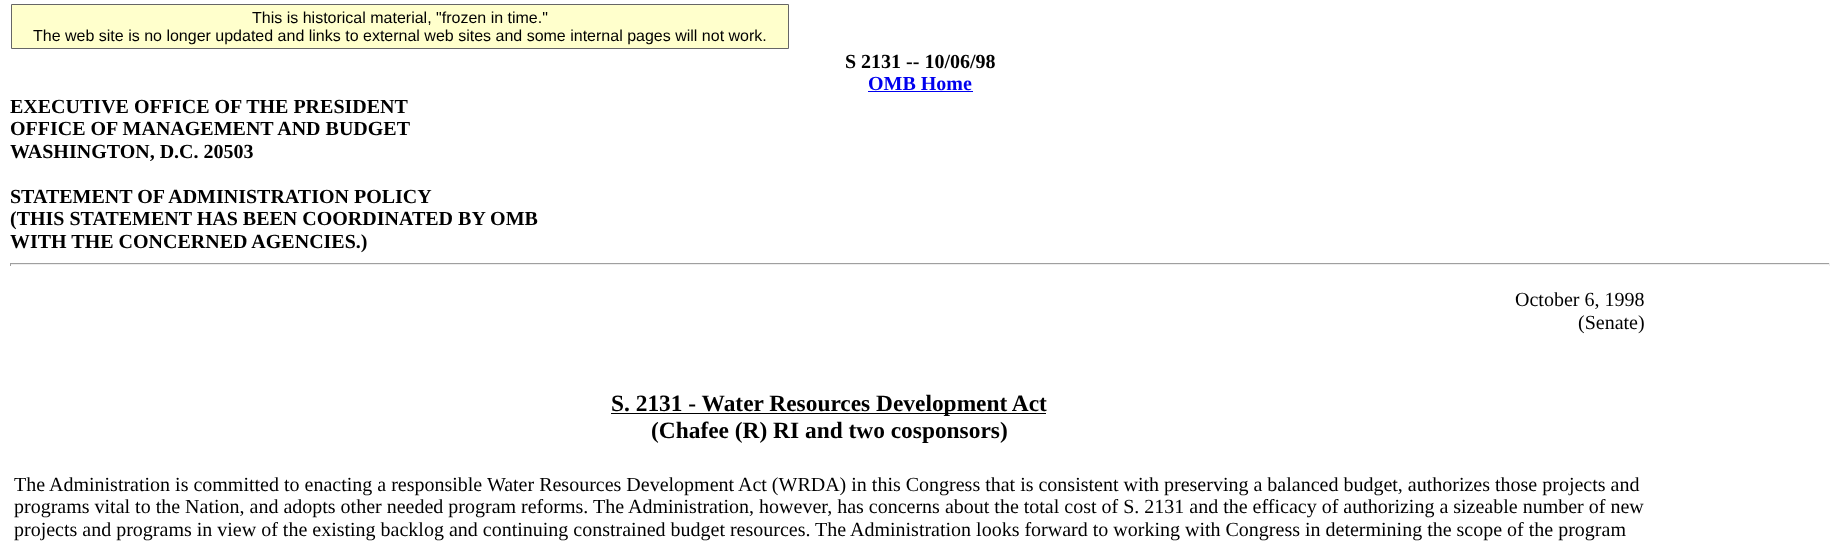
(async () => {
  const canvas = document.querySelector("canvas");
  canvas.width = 1840;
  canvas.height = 550;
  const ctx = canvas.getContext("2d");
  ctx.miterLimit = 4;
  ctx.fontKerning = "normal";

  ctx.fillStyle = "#ffffff";
  ctx.fillRect(0, 0, 1840, 550);
  ctx.fillStyle = "#ffffcc";
  ctx.beginPath();
  ctx.rect(11.5, 4.5, 777, 44);
  ctx.fill();
  ctx.strokeStyle = "#666666";
  ctx.stroke();
  for (const [x, y, w, h, color] of [
    [868, 91, 105, 1, "#0000ee"],
    [10, 263, 1820, 1, "#9f9f9f"],
    [1829, 263, 1, 3, "#eeeeee"],
    [10, 264, 1820, 1, "#eeeeee"],
    [10, 263, 1, 3, "#9f9f9f"],
    [611, 413, 435, 1, "#000000"],
  ]) {
    ctx.fillStyle = color;
    ctx.fillRect(x, y, w, h);
  }
  ctx.font = "16px Liberation Sans";
  ctx.fillText("This is historical material, \"frozen in time.\"", 252, 23);
  ctx.fillText("The web site is no longer updated and links to external web sites and some internal pages will not work.", 33, 41);
  ctx.font = "bold 20px Liberation Serif";
  ctx.fillText("S 2131 -- 10/06/98", 845, 68);
  ctx.fillStyle = "#0000ee";
  ctx.fillText("OMB Home", 868, 90);
  ctx.fillStyle = "#000000";
  for (const [text, x, y] of [
    ["EXECUTIVE OFFICE OF THE PRESIDENT", 10, 113],
    ["OFFICE OF MANAGEMENT AND BUDGET", 10, 135],
    ["WASHINGTON, D.C. 20503", 10, 158],
    ["STATEMENT OF ADMINISTRATION POLICY", 10, 203],
    ["(THIS STATEMENT HAS BEEN COORDINATED BY OMB", 10, 225],
    ["WITH THE CONCERNED AGENCIES.)", 10, 248],
  ]) {
    ctx.fillText(text, x, y);
  }
  ctx.font = "20px Liberation Serif";
  ctx.fillText("October 6, 1998", 1515, 306);
  ctx.fillText("(Senate)", 1578, 329);
  ctx.font = "bold 23.4px Liberation Serif";
  ctx.fillText("S. 2131 - Water Resources Development Act", 611, 411);
  ctx.fillText("(Chafee (R) RI and two cosponsors)", 651, 438);
  ctx.font = "20px Liberation Serif";
  for (const [text, x, y] of [
    ["The Administration is committed to enacting a responsible Water Resources Development Act (WRDA) in this Congress that is consistent with preserving a balanced budget, authorizes those projects and", 14, 491],
    ["programs vital to the Nation, and adopts other needed program reforms.", 14, 513],
    ["The Administration, however, has concerns about the total cost of S. 2131 and the efficacy of authorizing a sizeable number of new", 593, 513],
    ["projects and programs in view of the existing backlog and continuing constrained budget resources.", 14, 536],
    ["The Administration looks forward to working with Congress in determining the scope of the program", 815, 536],
  ]) {
    ctx.fillText(text, x, y);
  }
})();
